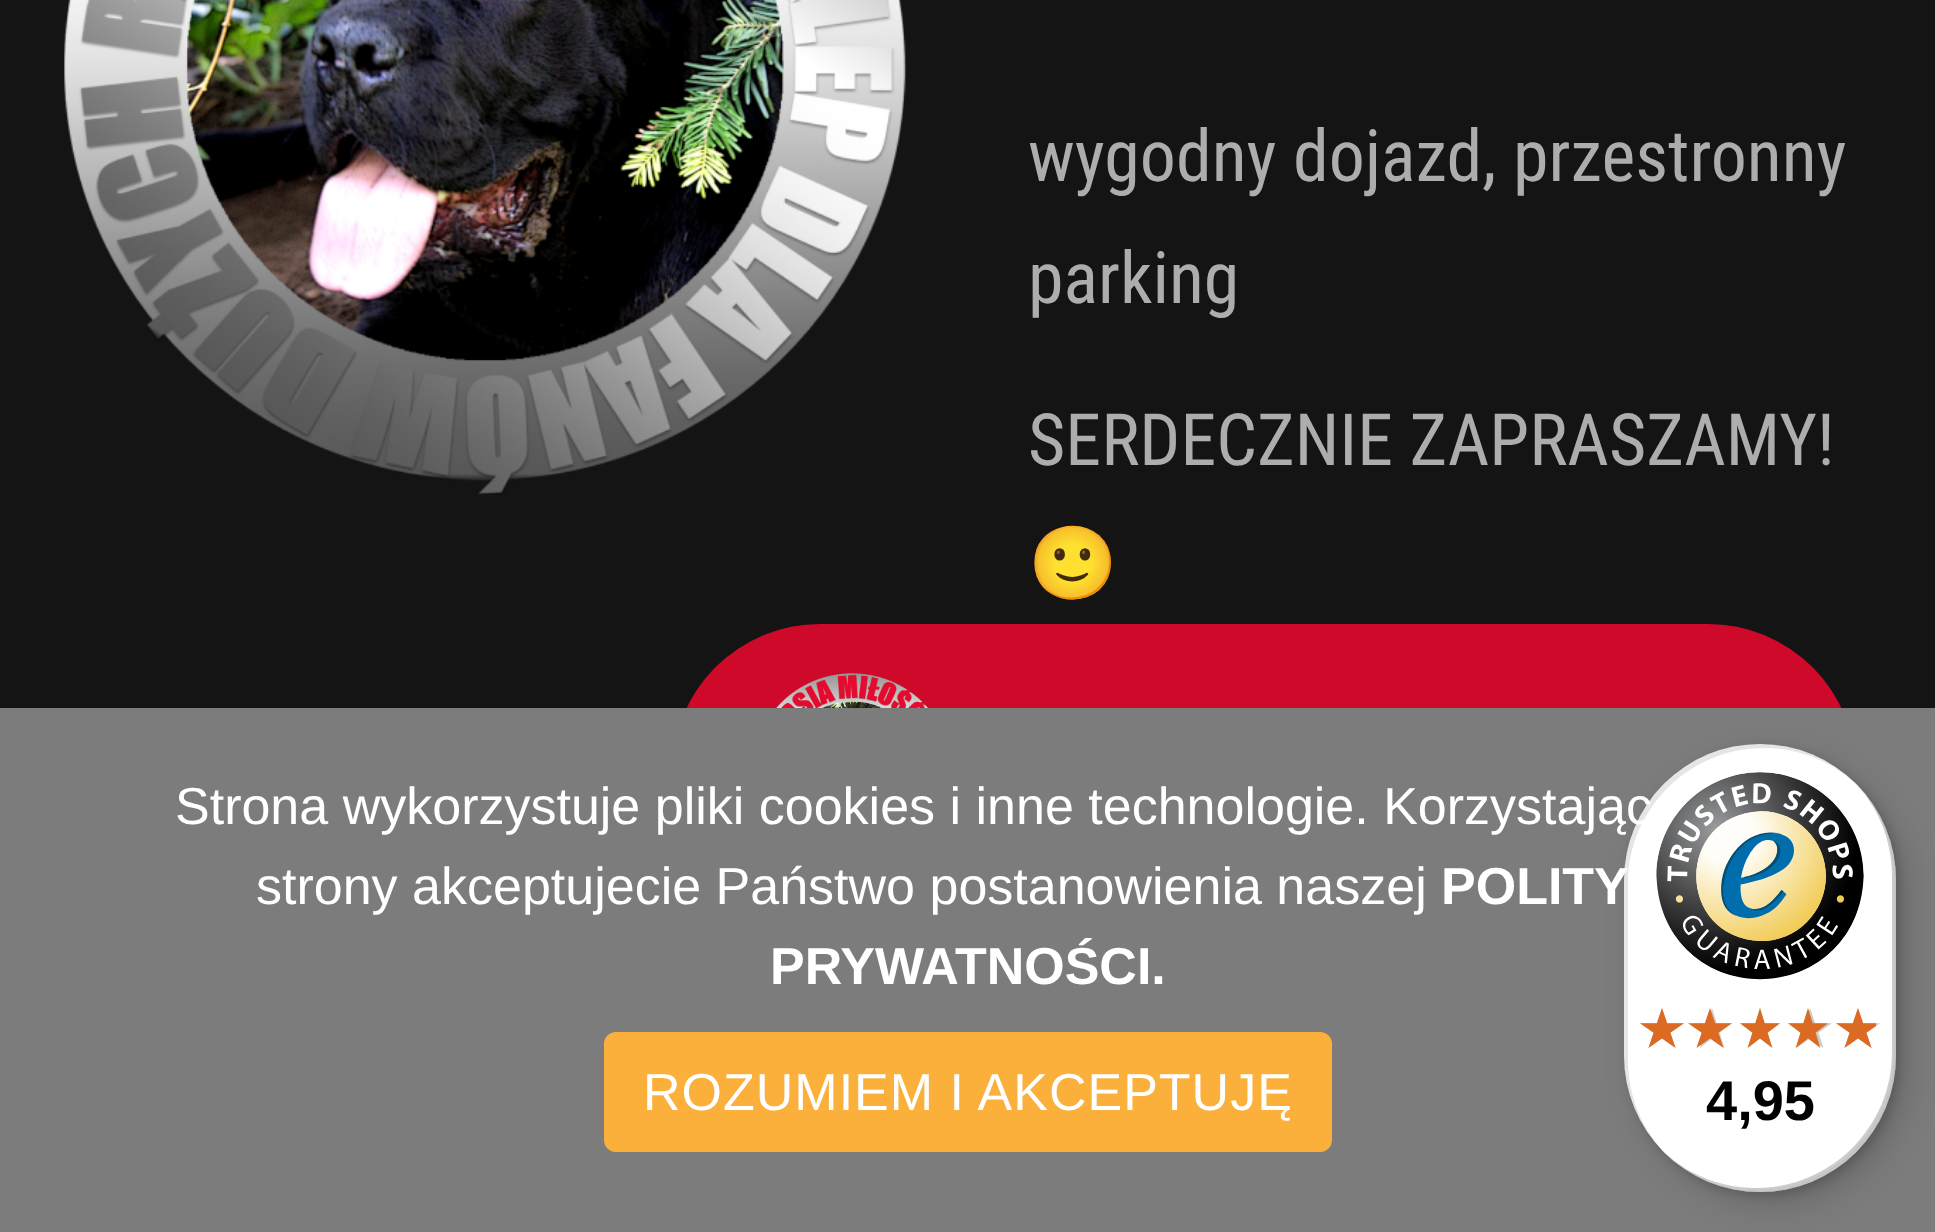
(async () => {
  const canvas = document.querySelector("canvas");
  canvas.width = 1935;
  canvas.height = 1232;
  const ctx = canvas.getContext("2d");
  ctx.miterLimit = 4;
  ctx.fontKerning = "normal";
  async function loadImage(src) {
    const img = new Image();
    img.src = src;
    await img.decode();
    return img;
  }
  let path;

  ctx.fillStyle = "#141414";
  ctx.fillRect(0, 0, 1935, 1232);
  ctx.drawImage(await loadImage("img/1.png"), 64, 0, 842, 495);
  ctx.fillStyle = "#cf0929";
  ctx.beginPath();
  ctx.roundRect(672, 624, 1184, 296, 148);
  ctx.fill();
  ctx.drawImage(await loadImage("img/2.png"), 776, 673, 152, 35);
  ctx.fillStyle = "#7c7c7c";
  ctx.fillRect(0, 708, 1935, 524);
  ctx.fillStyle = "#fbb03b";
  ctx.beginPath();
  ctx.roundRect(604, 1032, 728, 120, 12);
  ctx.fill();
  ctx.fillStyle = "rgba(0, 0, 0, 0.15)";
  ctx.filter = "blur(16px)";
  ctx.beginPath();
  ctx.roundRect(1636, 756, 272, 448, 136);
  ctx.fill();
  ctx.filter = "none";
  ctx.filter = "blur(4px)";
  ctx.beginPath();
  ctx.roundRect(1628, 748, 272, 448, 136);
  ctx.fill();
  ctx.filter = "none";
  ctx.fillStyle = "#ffffff";
  ctx.beginPath();
  ctx.roundRect(1624, 744, 272, 448, 136);
  ctx.fill();
  ctx.fillStyle = "rgba(0, 0, 0, 0.1)";
  path = new Path2D("M1764 748C1801 748 1835 763 1859 787C1834 760 1799 744 1760 744C1685 744 1624 805 1624 880V1056C1624 1095 1640 1130 1667 1155C1643 1131 1628 1097 1628 1060V884C1628 809 1689 748 1764 748Z");
  ctx.fill(path);
  ctx.fillStyle = "rgba(0, 0, 0, 0.2)";
  path = new Path2D("M1661 1149C1686 1176 1721 1192 1760 1192C1835 1192 1896 1131 1896 1056V880C1896 841 1880 806 1853 781C1877 805 1892 839 1892 876V1052C1892 1127 1831 1188 1756 1188C1719 1188 1685 1173 1661 1149Z");
  ctx.fill(path);
  ctx.fillStyle = "rgba(50, 50, 50, 0.2)";
  path = new Path2D("M1670 1158C1694 1179 1726 1192 1760 1192C1835 1192 1896 1131 1896 1056V880C1896 846 1883 814 1862 790C1882 814 1894 844 1894 878V1054C1894 1129 1833 1190 1758 1190C1724 1190 1694 1178 1670 1158Z");
  ctx.fill(path);
  ctx.fillStyle = "rgba(255, 255, 255, 0.3)";
  path = new Path2D("M1661 1149C1686 1176 1721 1192 1760 1192C1835 1192 1896 1131 1896 1056V880C1896 841 1880 806 1853 781C1878 806 1894 840 1894 878V1054C1894 1129 1833 1190 1758 1190C1720 1190 1686 1174 1661 1149Z");
  ctx.fill(path);
  ctx.drawImage(await loadImage("img/3.png"), 1656, 772, 208, 208);
  ctx.drawImage(await loadImage("img/4.png"), 1640, 1008, 44, 40);
  ctx.drawImage(await loadImage("img/5.png"), 1692, 1008, 40, 40);
  ctx.drawImage(await loadImage("img/6.png"), 1740, 1008, 40, 40);
  ctx.drawImage(await loadImage("img/7.png"), 1788, 1008, 44, 40);
  ctx.drawImage(await loadImage("img/7.png"), 1836, 1008, 44, 40);
  ctx.drawImage(await loadImage("img/8.png"), 1640, 1008, 44, 40);
  ctx.drawImage(await loadImage("img/9.png"), 1688, 1008, 44, 40);
  ctx.drawImage(await loadImage("img/10.png"), 1740, 1008, 40, 40);
  ctx.drawImage(await loadImage("img/11.png"), 1788, 1008, 40, 40);
  ctx.drawImage(await loadImage("img/12.png"), 1836, 1008, 40, 40);
  ctx.font = "72px Roboto Condensed";
  ctx.fillStyle = "#adadad";
  for (const [text, x, y] of [
    ["wygodny dojazd, przestronny", 1028, 181],
    ["parking", 1028, 303],
    ["SERDECZNIE ZAPRASZAMY!", 1028, 465],
  ]) {
    ctx.fillText(text, x, y);
  }
  ctx.font = "72px Noto Color Emoji";
  ctx.fillText("🙂", 1028, 588);
  ctx.font = "52px Liberation Sans";
  ctx.fillStyle = "#ffffff";
  ctx.fillText("Strona wykorzystuje pliki cookies i inne technologie. Korzystając", 175, 824);
  ctx.fillText("strony akceptujecie Państwo postanowienia naszej", 256, 904);
  ctx.font = "bold 52px Liberation Sans";
  ctx.fillText("POLITY", 1441, 904);
  ctx.fillText("PRYWATNOŚCI.", 770, 984);
  ctx.letterSpacing = "1px";
  ctx.font = "52px Liberation Sans";
  ctx.fillText("ROZUMIEM I AKCEPTUJĘ", 643, 1110);
  ctx.letterSpacing = "0px";
  ctx.font = "bold 56px Liberation Sans";
  ctx.fillStyle = "#000000";
  ctx.fillText("4,95", 1706, 1120);
})();
